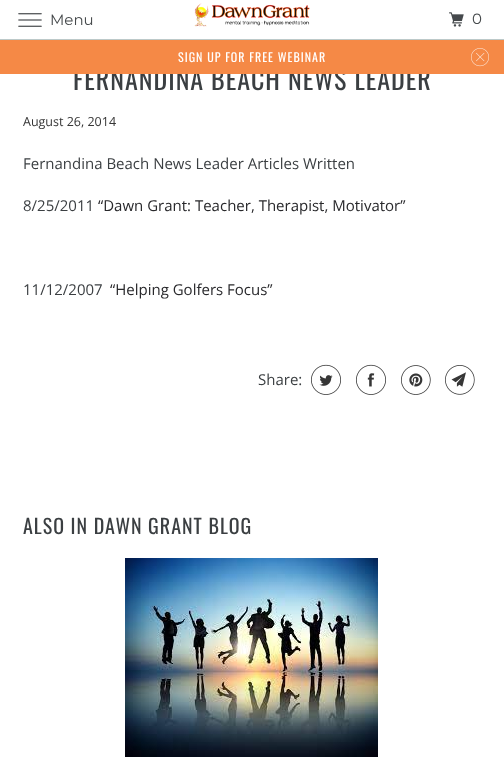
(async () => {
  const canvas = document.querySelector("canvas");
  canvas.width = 504;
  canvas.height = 778;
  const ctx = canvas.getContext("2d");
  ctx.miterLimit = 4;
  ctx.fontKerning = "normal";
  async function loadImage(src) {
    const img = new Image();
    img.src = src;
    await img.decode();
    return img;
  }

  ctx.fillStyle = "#ffffff";
  ctx.fillRect(0, 0, 504, 778);
  ctx.fillStyle = "#bcc9c9";
  ctx.fillRect(0, 39, 504, 1);
  ctx.drawImage(await loadImage("img/1.png"), 18, 13, 24, 14);
  ctx.drawImage(await loadImage("img/2.png"), 194, 3, 116, 24);
  ctx.drawImage(await loadImage("img/3.png"), 449, 12, 15, 15);
  ctx.drawImage(await loadImage("img/5.png"), 311, 364, 30, 31);
  ctx.drawImage(await loadImage("img/6.png"), 356, 364, 30, 31);
  ctx.drawImage(await loadImage("img/7.png"), 401, 365, 30, 30);
  ctx.drawImage(await loadImage("img/8.png"), 445, 365, 30, 30);
  ctx.drawImage(await loadImage("img/9.png"), 125, 558, 253, 199);
  ctx.font = "15px Montserrat";
  ctx.fillStyle = "#45494b";
  ctx.fillText("Menu", 50, 25);
  ctx.fillText("0", 472, 24);
  ctx.letterSpacing = "1px";
  ctx.font = "26px Oswald";
  ctx.fillStyle = "#3b3f42";
  ctx.fillText("FERNANDINA BEACH NEWS LEADER", 73, 90);
  ctx.fillStyle = "#f58946";
  ctx.fillRect(0, 40, 504, 34);
  ctx.drawImage(await loadImage("img/4.png"), 471, 48, 18, 19);
  ctx.font = "12px Oswald";
  ctx.fillStyle = "#ffffff";
  ctx.fillText("SIGN UP FOR FREE WEBINAR", 178, 62);
  ctx.letterSpacing = "0px";
  ctx.font = "12.5px Open Sans";
  ctx.fillStyle = "#363636";
  ctx.fillText("August 26, 2014", 23, 126);
  ctx.font = "15px Open Sans";
  ctx.fillStyle = "#3b3f42";
  ctx.fillText("Fernandina Beach News Leader Articles Written", 23, 169);
  ctx.fillText("8/25/2011", 23, 211);
  ctx.fillStyle = "#28282b";
  ctx.fillText("“Dawn Grant: Teacher, Therapist, Motivator”", 98, 211);
  ctx.fillStyle = "#3b3f42";
  ctx.fillText("11/12/2007", 23, 295);
  ctx.fillStyle = "#28282b";
  ctx.fillText("“Helping Golfers Focus”", 110, 295);
  ctx.fillStyle = "#3b3f42";
  ctx.fillText("Share:", 258, 385);
  ctx.letterSpacing = "1px";
  ctx.font = "20px Oswald";
  ctx.fillText("ALSO IN DAWN GRANT BLOG", 23, 534);
})();
